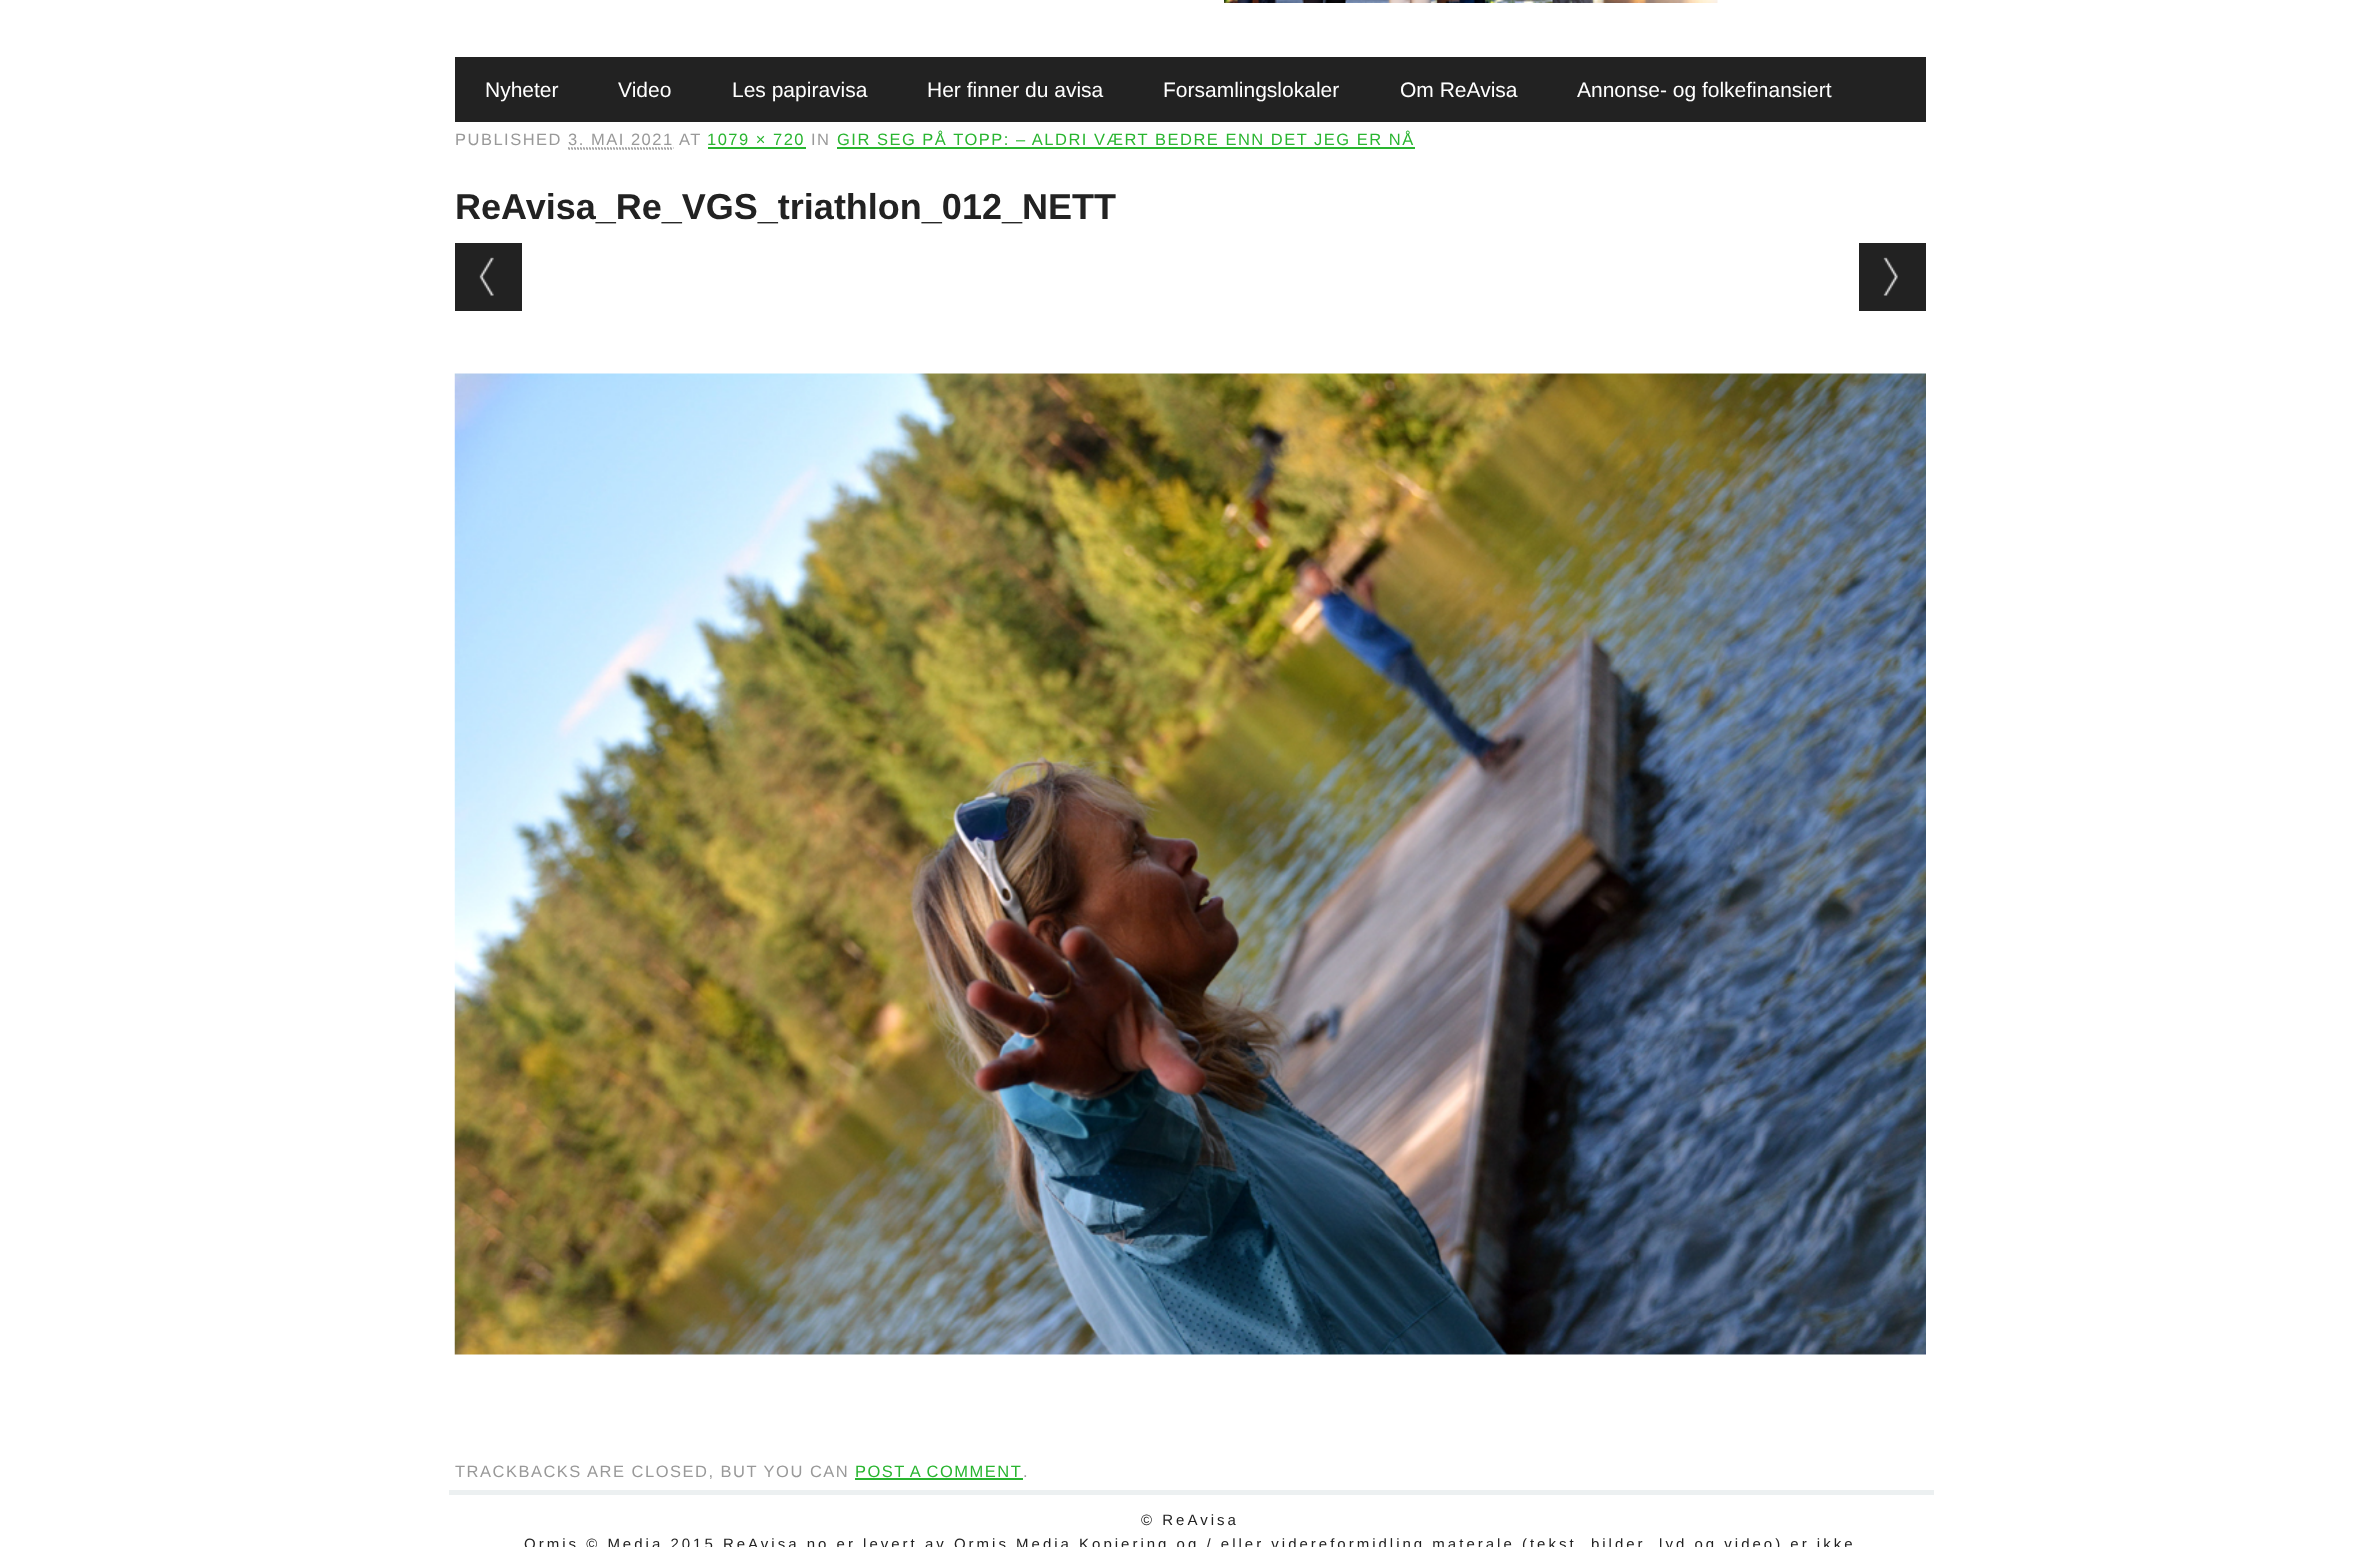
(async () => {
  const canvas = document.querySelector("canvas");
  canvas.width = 2380;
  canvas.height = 1547;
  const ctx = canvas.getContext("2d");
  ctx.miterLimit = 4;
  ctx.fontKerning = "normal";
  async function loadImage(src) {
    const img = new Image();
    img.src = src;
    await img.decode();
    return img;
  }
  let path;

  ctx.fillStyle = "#ffffff";
  ctx.fillRect(0, 0, 2380, 1547);
  ctx.drawImage(await loadImage("img/1.png"), 1224, 0, 494, 3);
  for (const [x, y, w, h, color] of [
    [455, 57, 1471, 65, "#222222"],
    [708, 147, 98, 2, "#29b530"],
    [837, 147, 578, 2, "#29b530"],
  ]) {
    ctx.fillStyle = color;
    ctx.fillRect(x, y, w, h);
  }
  path = new Path2D("M568.5 149H673.5");
  ctx.strokeStyle = "#999999";
  ctx.lineWidth = 1.5;
  ctx.setLineDash([1.5, 1.5]);
  ctx.stroke(path);
  path = new Path2D("M568 148H673.5");
  ctx.stroke(path);
  ctx.fillStyle = "#222222";
  ctx.fillRect(455, 243, 67, 68);
  ctx.drawImage(await loadImage("img/2.png"), 479, 257, 15, 39);
  ctx.fillRect(1859, 243, 67, 68);
  ctx.drawImage(await loadImage("img/3.png"), 1883, 257, 15, 39);
  ctx.drawImage(await loadImage("img/4.png"), 454, 373, 1472, 982);
  ctx.fillStyle = "#29b530";
  ctx.fillRect(855, 1478, 168, 2);
  ctx.fillStyle = "#ecf0f1";
  ctx.fillRect(449, 1490, 1485, 5);
  ctx.font = "21px Liberation Sans";
  ctx.fillStyle = "#ffffff";
  for (const [text, x, y] of [
    ["Nyheter", 485, 97],
    ["Video", 618, 97],
    ["Les papiravisa", 732, 97],
    ["Her finner du avisa", 927, 97],
    ["Forsamlingslokaler", 1163, 97],
    ["Om ReAvisa", 1400, 97],
    ["Annonse- og folkefinansiert", 1577, 97],
  ]) {
    ctx.fillText(text, x, y);
  }
  ctx.letterSpacing = "1.5px";
  ctx.font = "16.5px Liberation Sans";
  ctx.fillStyle = "#999999";
  ctx.fillText("PUBLISHED 3. MAI 2021", 455, 145);
  ctx.fillText("AT", 679, 145);
  ctx.fillStyle = "#29b530";
  ctx.fillText("1079 × 720", 707, 145);
  ctx.fillStyle = "#999999";
  ctx.fillText("IN", 811, 145);
  ctx.fillStyle = "#29b530";
  ctx.fillText("GIR SEG PÅ TOPP: – ALDRI VÆRT BEDRE ENN DET JEG ER NÅ", 837, 145);
  ctx.letterSpacing = "0px";
  ctx.font = "bold 36px Liberation Sans";
  ctx.fillStyle = "#222222";
  ctx.fillText("ReAvisa_Re_VGS_triathlon_012_NETT", 455, 219);
  ctx.letterSpacing = "1.5px";
  ctx.font = "16.5px Liberation Sans";
  ctx.fillStyle = "#999999";
  ctx.fillText("TRACKBACKS ARE CLOSED, BUT YOU CAN", 455, 1477);
  ctx.wordSpacing = "-1px";
  ctx.fillStyle = "#29b530";
  ctx.fillText("POST A COMMENT", 855, 1477);
  ctx.wordSpacing = "0px";
  ctx.fillStyle = "#999999";
  ctx.fillText(".", 1023, 1477);
  ctx.letterSpacing = "3px";
  ctx.font = "15px Liberation Sans";
  ctx.fillStyle = "#222222";
  ctx.fillText("© ReAvisa", 1141, 1525);
  ctx.fillText("Ormis © Media 2015 ReAvisa.no er levert av Ormis Media Kopiering og / eller videreformidling materale (tekst, bilder, lyd og video) er ikke", 524, 1549);
})();
